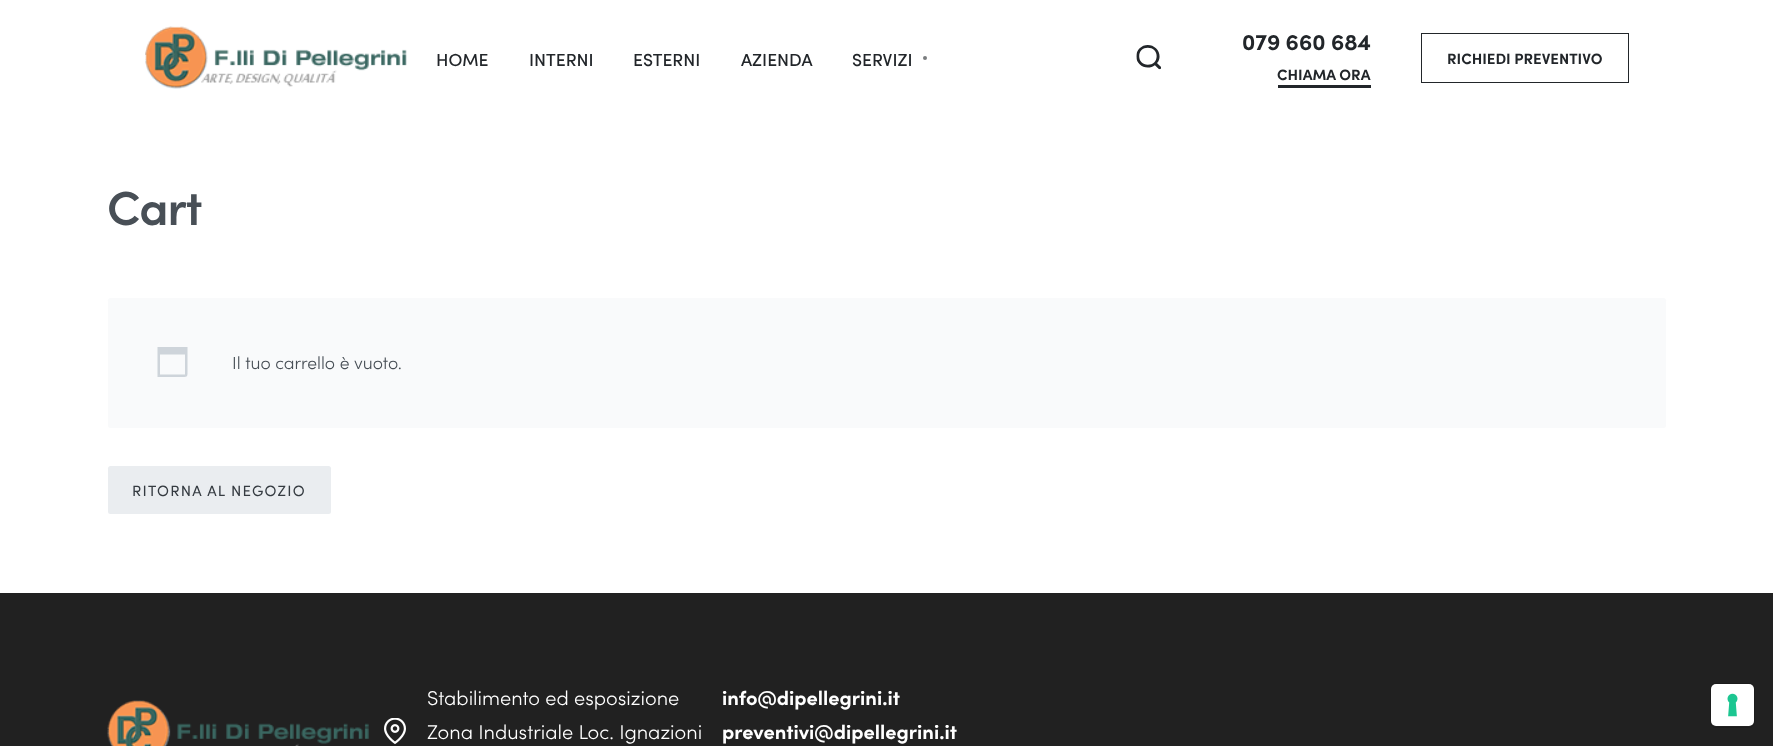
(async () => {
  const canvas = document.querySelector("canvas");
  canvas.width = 1773;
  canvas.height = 746;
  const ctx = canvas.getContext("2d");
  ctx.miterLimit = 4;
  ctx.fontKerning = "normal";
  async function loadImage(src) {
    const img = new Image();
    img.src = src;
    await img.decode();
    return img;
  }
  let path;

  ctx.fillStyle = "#ffffff";
  ctx.fillRect(0, 0, 1773, 746);
  ctx.drawImage(await loadImage("img/1.png"), 145, 26, 262, 63);
  ctx.fillStyle = "#7a7d7f";
  ctx.beginPath();
  ctx.arc(925, 58, 2, 0, Math.PI * 2);
  ctx.fill();
  ctx.drawImage(await loadImage("img/2.png"), 1136, 45, 25, 25);
  ctx.fillStyle = "#22262a";
  ctx.fillRect(1278, 85, 93, 3);
  ctx.strokeStyle = "#22262a";
  ctx.strokeRect(1421.5, 33.5, 207, 49);
  ctx.fillStyle = "#f9fafb";
  ctx.beginPath();
  ctx.roundRect(108, 298, 1558, 130, 2.5);
  ctx.fill();
  ctx.fillStyle = "#ced4da";
  path = new Path2D("M185 354.5H160V374.5H185ZM187.5 347V370C187.5 377.5 188 377 180.5 377H157.5V347Z");
  ctx.fill(path);
  ctx.fillStyle = "#eaedf0";
  ctx.beginPath();
  ctx.roundRect(108, 466, 223, 48, 2.5);
  ctx.fill();
  ctx.fillStyle = "#212121";
  ctx.fillRect(0, 593, 1773, 153);
  ctx.drawImage(await loadImage("img/3.png"), 107, 700, 262, 46);
  ctx.drawImage(await loadImage("img/4.png"), 384, 718, 22, 26);
  ctx.beginPath();
  ctx.roundRect(1710.5, 683.5, 44, 44, 5.5);
  ctx.strokeStyle = "#1c1c1c";
  ctx.stroke();
  ctx.fillStyle = "#ffffff";
  ctx.beginPath();
  ctx.roundRect(1711, 684, 43, 42, 5);
  ctx.fill();
  ctx.drawImage(await loadImage("img/5.png"), 1727, 693, 11, 24);
  ctx.font = "500 17.5px Sofia";
  ctx.fillStyle = "#22262a";
  for (const [text, x, y] of [
    ["HOME", 436, 66],
    ["INTERNI", 529, 66],
    ["ESTERNI", 633, 66],
    ["AZIENDA", 741, 66],
    ["SERVIZI", 852, 66],
  ]) {
    ctx.fillText(text, x, y);
  }
  ctx.font = "bold 22.5px Sofia";
  ctx.fillText("079 660 684", 1242, 50);
  ctx.font = "bold 15px Sofia";
  ctx.fillText("CHIAMA ORA", 1277, 80);
  ctx.fillText("RICHIEDI PREVENTIVO", 1447, 64);
  ctx.letterSpacing = "-1px";
  ctx.font = "600 48px Sofia";
  ctx.fillStyle = "#484f56";
  ctx.fillText("Cart", 107, 225);
  ctx.letterSpacing = "0px";
  ctx.font = "300 17.5px Sofia";
  ctx.fillText("Il tuo carrello è vuoto.", 232, 369);
  ctx.letterSpacing = "1.25px";
  ctx.font = "15px Sofia";
  ctx.fillStyle = "#353b41";
  ctx.fillText("RITORNA AL NEGOZIO", 132, 496);
  ctx.letterSpacing = "0px";
  ctx.font = "300 20px Sofia";
  ctx.fillStyle = "#ffffff";
  ctx.fillText("Stabilimento ed esposizione", 427, 705);
  ctx.fillText("Zona Industriale Loc. Ignazioni", 427, 739);
  ctx.font = "bold 20px Sofia";
  ctx.fillText("info@dipellegrini.it", 722, 705);
  ctx.fillText("preventivi@dipellegrini.it", 722, 739);
})();
